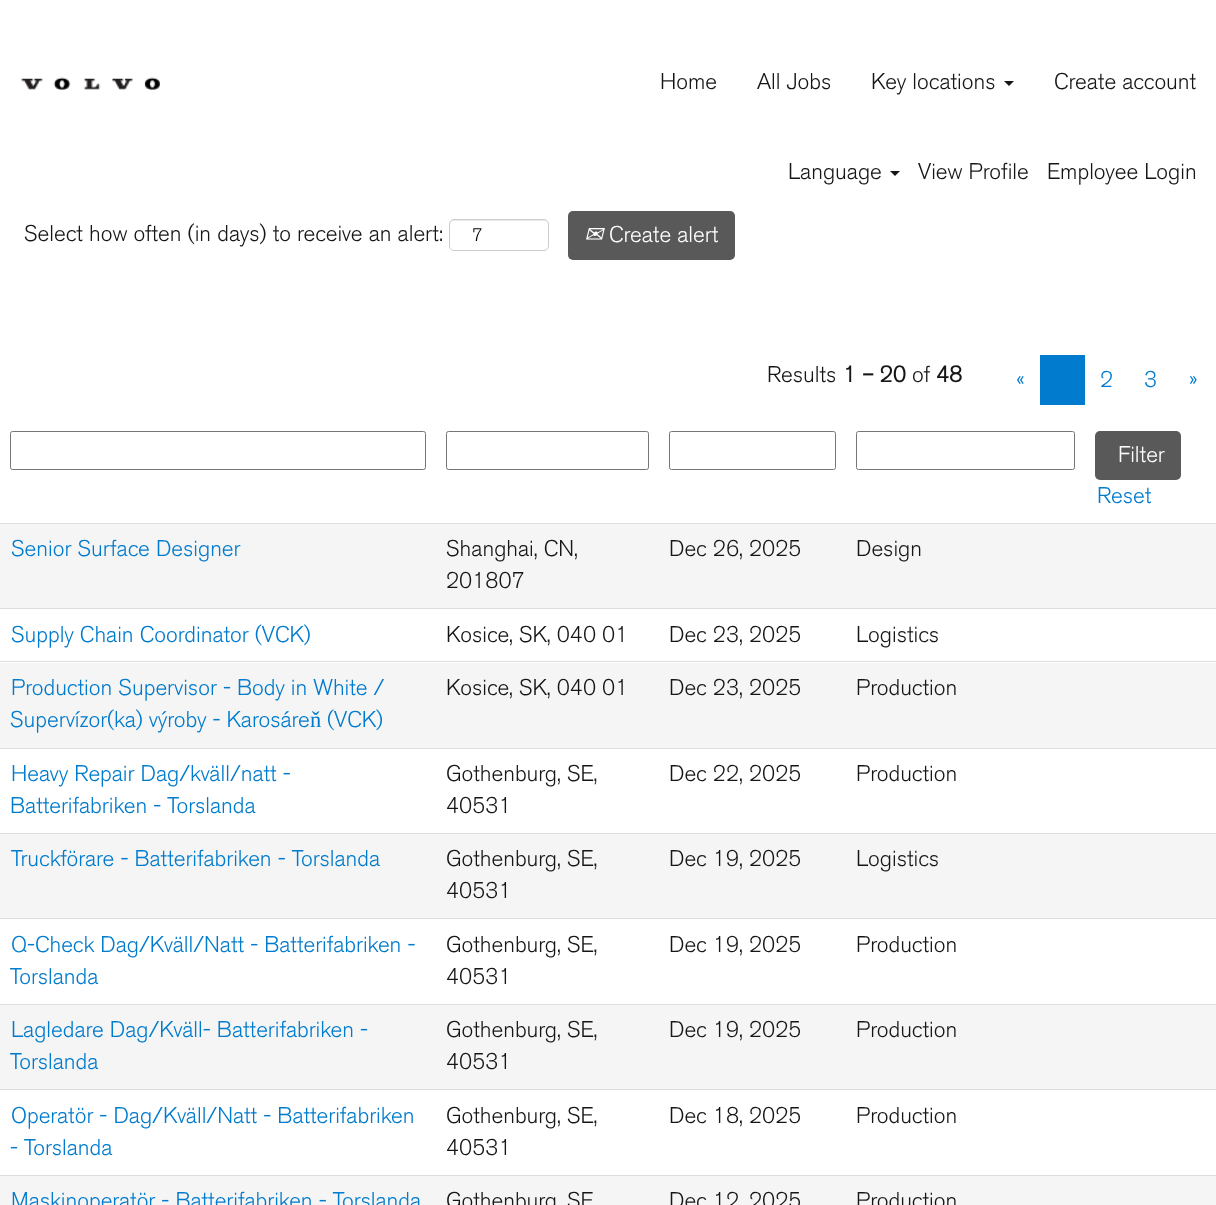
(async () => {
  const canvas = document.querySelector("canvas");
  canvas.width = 1216;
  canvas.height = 1205;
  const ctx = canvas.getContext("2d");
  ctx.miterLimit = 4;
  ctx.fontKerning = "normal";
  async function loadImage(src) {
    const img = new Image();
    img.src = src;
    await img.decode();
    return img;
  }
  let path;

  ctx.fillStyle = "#ffffff";
  ctx.fillRect(0, 0, 1216, 1205);
  ctx.drawImage(await loadImage("img/1.png"), 21, 77, 139, 13);
  ctx.fillStyle = "#161618";
  path = new Path2D("M1004 81H1014L1009 86Z");
  ctx.fill(path);
  path = new Path2D("M890 171H900L895 176Z");
  ctx.fill(path);
  ctx.fillStyle = "#ececec";
  path = new Path2D("M454 221H544C546 221 548 223 548 225C548 216 533 220 529 220H469C465 220 450 216 450 225C450 223 452 221 454 221Z");
  ctx.fill(path);
  ctx.beginPath();
  ctx.roundRect(449.5, 219.5, 99, 31, 4.5);
  ctx.strokeStyle = "#cccccc";
  ctx.stroke();
  ctx.fillStyle = "#595959";
  ctx.beginPath();
  ctx.roundRect(568, 211, 167, 49, 5);
  ctx.fill();
  ctx.fillStyle = "#007bcd";
  ctx.fillRect(1040, 355, 45, 50);
  ctx.beginPath();
  ctx.roundRect(10.5, 431.5, 415, 38, 2);
  ctx.strokeStyle = "#767676";
  ctx.stroke();
  ctx.beginPath();
  ctx.roundRect(446.5, 431.5, 202, 38, 2);
  ctx.stroke();
  ctx.beginPath();
  ctx.roundRect(669.5, 431.5, 166, 38, 2);
  ctx.stroke();
  ctx.beginPath();
  ctx.roundRect(856.5, 431.5, 218, 38, 2);
  ctx.stroke();
  ctx.fillStyle = "#595959";
  ctx.beginPath();
  ctx.roundRect(1095, 431, 86, 49, 5);
  ctx.fill();
  for (const [x, y, w, h, color] of [
    [0, 524, 1216, 84, "#f5f5f5"],
    [0, 523, 1216, 1, "#dddddd"],
    [0, 608, 1216, 1, "#dddddd"],
    [0, 663, 1216, 85, "#f5f5f5"],
    [0, 661, 1216, 1, "#dddddd"],
    [0, 748, 1216, 1, "#dddddd"],
    [0, 834, 1216, 84, "#f5f5f5"],
    [0, 833, 1216, 1, "#dddddd"],
    [0, 918, 1216, 1, "#dddddd"],
    [0, 1005, 1216, 84, "#f5f5f5"],
    [0, 1004, 1216, 1, "#dddddd"],
    [0, 1089, 1216, 1, "#dddddd"],
    [0, 1176, 1216, 29, "#f5f5f5"],
    [0, 1175, 1216, 1, "#dddddd"],
  ]) {
    ctx.fillStyle = color;
    ctx.fillRect(x, y, w, h);
  }
  ctx.font = "300 22.5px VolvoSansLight";
  ctx.fillStyle = "#161618";
  for (const [text, x, y] of [
    ["Home", 660, 89],
    ["All Jobs", 757, 89],
    ["Key locations", 871, 89],
    ["Create account", 1054, 89],
    ["Language", 788, 179],
    ["View Profile", 918, 179],
    ["Employee Login", 1047, 179],
    ["Select how often (in days) to receive an alert:", 24, 241],
  ]) {
    ctx.fillText(text, x, y);
  }
  ctx.font = "300 18px VolvoSansLight";
  ctx.fillStyle = "#000000";
  ctx.fillText("7", 472, 241);
  ctx.font = "italic 22.5px DejaVu Sans";
  ctx.fillStyle = "#ffffff";
  ctx.fillText("✉", 584, 242);
  ctx.font = "300 22.5px VolvoSansLight";
  ctx.fillText("Create alert", 609, 242);
  ctx.fillStyle = "#161618";
  ctx.fillText("Results", 767, 382);
  ctx.font = "bold 22.5px VolvoSansLight";
  ctx.fillText("1 – 20", 843, 382);
  ctx.font = "300 22.5px VolvoSansLight";
  ctx.fillText("of", 912, 382);
  ctx.font = "bold 22.5px VolvoSansLight";
  ctx.fillText("48", 936, 382);
  ctx.font = "300 22.5px VolvoSansLight";
  ctx.fillStyle = "#007bcd";
  for (const [text, x, y] of [
    ["«", 1016, 387],
    ["2", 1100, 387],
    ["3", 1144, 387],
    ["»", 1189, 387],
  ]) {
    ctx.fillText(text, x, y);
  }
  ctx.fillStyle = "#ffffff";
  ctx.fillText("Filter", 1118, 462);
  ctx.fillStyle = "#007bcd";
  ctx.fillText("Reset", 1097, 503);
  ctx.fillText("Senior Surface Designer", 11, 556);
  ctx.fillStyle = "#161618";
  for (const [text, x, y] of [
    ["Shanghai, CN,", 446, 556],
    ["201807", 446, 588],
    ["Dec 26, 2025", 669, 556],
    ["Design", 856, 556],
  ]) {
    ctx.fillText(text, x, y);
  }
  ctx.fillStyle = "#007bcd";
  ctx.fillText("Supply Chain Coordinator (VCK)", 11, 642);
  ctx.fillStyle = "#161618";
  for (const [text, x, y] of [
    ["Kosice, SK, 040 01", 446, 642],
    ["Dec 23, 2025", 669, 642],
    ["Logistics", 856, 642],
  ]) {
    ctx.fillText(text, x, y);
  }
  ctx.fillStyle = "#007bcd";
  ctx.fillText("Production Supervisor - Body in White /", 11, 695);
  ctx.fillText("Supervízor(ka) výroby - Karosáre", 10, 727);
  ctx.font = "22.5px Liberation Serif";
  ctx.fillText("ň", 310, 727);
  ctx.font = "300 22.5px VolvoSansLight";
  ctx.fillText("(VCK)", 327, 727);
  ctx.fillStyle = "#161618";
  for (const [text, x, y] of [
    ["Kosice, SK, 040 01", 446, 695],
    ["Dec 23, 2025", 669, 695],
    ["Production", 856, 695],
  ]) {
    ctx.fillText(text, x, y);
  }
  ctx.fillStyle = "#007bcd";
  ctx.fillText("Heavy Repair Dag/kväll/natt -", 11, 781);
  ctx.fillText("Batterifabriken - Torslanda", 10, 813);
  ctx.fillStyle = "#161618";
  for (const [text, x, y] of [
    ["Gothenburg, SE,", 446, 781],
    ["40531", 446, 813],
    ["Dec 22, 2025", 669, 781],
    ["Production", 856, 781],
  ]) {
    ctx.fillText(text, x, y);
  }
  ctx.fillStyle = "#007bcd";
  ctx.fillText("Truckförare - Batterifabriken - Torslanda", 11, 866);
  ctx.fillStyle = "#161618";
  for (const [text, x, y] of [
    ["Gothenburg, SE,", 446, 866],
    ["40531", 446, 898],
    ["Dec 19, 2025", 669, 866],
    ["Logistics", 856, 866],
  ]) {
    ctx.fillText(text, x, y);
  }
  ctx.fillStyle = "#007bcd";
  ctx.fillText("Q-Check Dag/Kväll/Natt - Batterifabriken -", 11, 952);
  ctx.fillText("Torslanda", 10, 984);
  ctx.fillStyle = "#161618";
  for (const [text, x, y] of [
    ["Gothenburg, SE,", 446, 952],
    ["40531", 446, 984],
    ["Dec 19, 2025", 669, 952],
    ["Production", 856, 952],
  ]) {
    ctx.fillText(text, x, y);
  }
  ctx.fillStyle = "#007bcd";
  ctx.fillText("Lagledare Dag/Kväll- Batterifabriken -", 11, 1037);
  ctx.fillText("Torslanda", 10, 1069);
  ctx.fillStyle = "#161618";
  for (const [text, x, y] of [
    ["Gothenburg, SE,", 446, 1037],
    ["40531", 446, 1069],
    ["Dec 19, 2025", 669, 1037],
    ["Production", 856, 1037],
  ]) {
    ctx.fillText(text, x, y);
  }
  ctx.fillStyle = "#007bcd";
  ctx.fillText("Operatör - Dag/Kväll/Natt - Batterifabriken", 11, 1123);
  ctx.fillText("- Torslanda", 10, 1155);
  ctx.fillStyle = "#161618";
  for (const [text, x, y] of [
    ["Gothenburg, SE,", 446, 1123],
    ["40531", 446, 1155],
    ["Dec 18, 2025", 669, 1123],
    ["Production", 856, 1123],
  ]) {
    ctx.fillText(text, x, y);
  }
  ctx.fillStyle = "#007bcd";
  ctx.fillText("Maskinoperatör - Batterifabriken - Torslanda", 11, 1208);
  ctx.fillStyle = "#161618";
  for (const [text, x, y] of [
    ["Gothenburg, SE", 446, 1208],
    ["Dec 12, 2025", 669, 1208],
    ["Production", 856, 1208],
  ]) {
    ctx.fillText(text, x, y);
  }
})();
